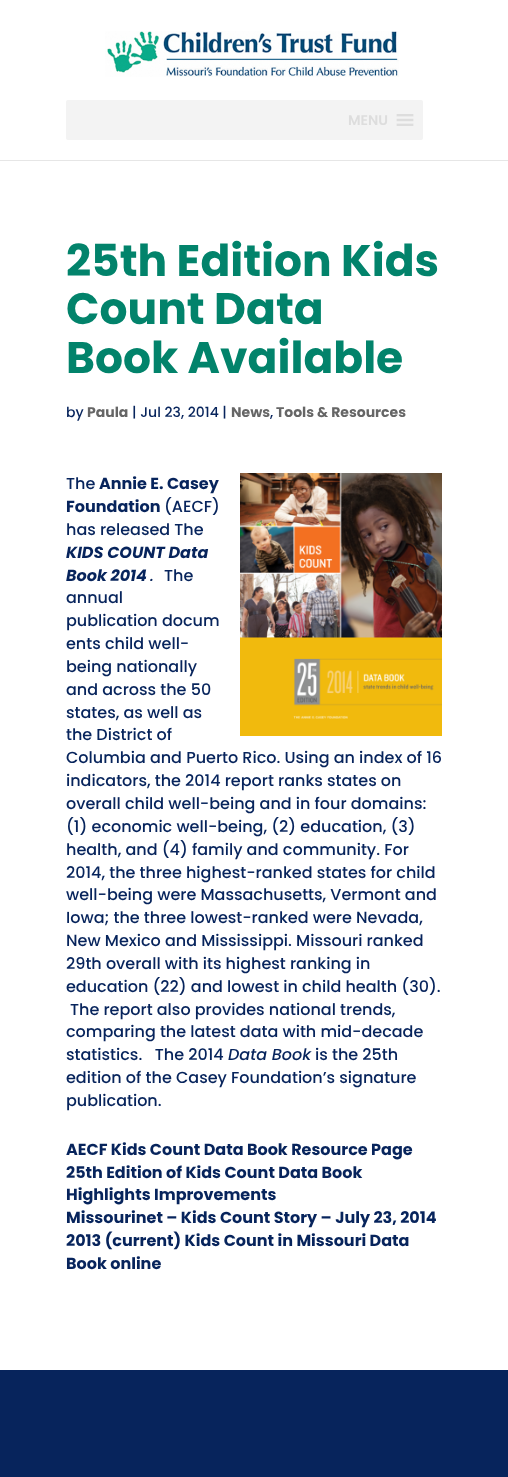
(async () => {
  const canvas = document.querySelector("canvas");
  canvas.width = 508;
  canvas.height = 1477;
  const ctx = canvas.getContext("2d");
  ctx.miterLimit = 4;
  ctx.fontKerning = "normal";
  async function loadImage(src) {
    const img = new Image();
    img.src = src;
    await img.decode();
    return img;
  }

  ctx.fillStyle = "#ffffff";
  ctx.fillRect(0, 0, 508, 1477);
  ctx.fillStyle = "#e6e6e6";
  ctx.fillRect(0, 160, 508, 1);
  ctx.drawImage(await loadImage("img/1.png"), 105, 31, 294, 46);
  ctx.fillStyle = "#f3f3f3";
  ctx.beginPath();
  ctx.roundRect(66, 100, 357, 40, 2);
  ctx.fill();
  ctx.drawImage(await loadImage("img/2.png"), 396, 114, 18, 12);
  ctx.drawImage(await loadImage("img/3.png"), 240, 473, 202, 263);
  ctx.fillStyle = "#07245c";
  ctx.fillRect(0, 1370, 508, 107);
  ctx.font = "600 14px Poppins";
  ctx.fillStyle = "#dddddd";
  ctx.fillText("MENU", 348, 125);
  ctx.font = "bold 44px Poppins";
  ctx.fillStyle = "#02836b";
  for (const [text, x, y] of [
    ["25th Edition Kids", 66, 276],
    ["Count Data", 66, 324],
    ["Book Available", 66, 373],
  ]) {
    ctx.fillText(text, x, y);
  }
  ctx.font = "500 14px Poppins";
  ctx.fillStyle = "#07245c";
  ctx.fillText("by", 66, 417);
  ctx.font = "bold 14px Poppins";
  ctx.fillStyle = "#666666";
  ctx.fillText("Paula", 87, 417);
  ctx.font = "500 14px Poppins";
  ctx.fillStyle = "#07245c";
  ctx.fillText("| Jul 23, 2014 |", 132, 417);
  ctx.font = "bold 14px Poppins";
  ctx.fillStyle = "#666666";
  ctx.fillText("News", 231, 417);
  ctx.font = "500 14px Poppins";
  ctx.fillStyle = "#07245c";
  ctx.fillText(",", 270, 417);
  ctx.font = "bold 14px Poppins";
  ctx.fillStyle = "#666666";
  ctx.fillText("Tools & Resources", 276, 417);
  ctx.font = "500 16px Poppins";
  ctx.fillStyle = "#07245c";
  ctx.fillText("The", 66, 489);
  ctx.font = "bold 16px Poppins";
  ctx.fillText("Annie E. Casey", 99, 489);
  ctx.fillText("Foundation", 66, 512);
  ctx.font = "500 16px Poppins";
  ctx.fillText("(AECF)", 164, 512);
  ctx.fillText("has released The", 66, 535);
  ctx.font = "italic bold 16px Poppins";
  ctx.fillText("KIDS COUNT Data", 66, 558);
  ctx.fillText("Book 2014", 66, 581);
  ctx.font = "italic 500 16px Poppins";
  ctx.fillText(".", 150, 581);
  ctx.font = "500 16px Poppins";
  for (const [text, x, y] of [
    ["The", 164, 581],
    ["annual", 66, 603],
    ["publication docum", 66, 626],
    ["ents child well-", 66, 649],
    ["being nationally", 66, 672],
    ["and across the 50", 66, 695],
    ["states, as well as", 66, 718],
    ["the District of", 66, 740],
    ["Columbia and Puerto Rico. Using an index of 16", 66, 763],
    ["indicators, the 2014 report ranks states on", 66, 786],
    ["overall child well-being and in four domains:", 66, 809],
    ["(1) economic well-being, (2) education, (3)", 66, 832],
    ["health, and (4) family and community. For", 66, 855],
    ["2014, the three highest-ranked states for child", 66, 878],
    ["well-being were Massachusetts, Vermont and", 66, 900],
    ["Iowa; the three lowest-ranked were Nevada,", 66, 923],
    ["New Mexico and Mississippi. Missouri ranked", 66, 946],
    ["29th overall with its highest ranking in", 66, 969],
    ["education (22) and lowest in child health (30).", 66, 992],
    ["The report also provides national trends,", 70, 1015],
    ["comparing the latest data with mid-decade", 66, 1037],
    ["statistics.   The 2014", 66, 1060],
  ]) {
    ctx.fillText(text, x, y);
  }
  ctx.font = "italic 500 16px Poppins";
  ctx.fillText("Data Book", 228, 1060);
  ctx.font = "500 16px Poppins";
  for (const [text, x, y] of [
    ["is the 25th", 315, 1060],
    ["edition of the Casey Foundation’s signature", 66, 1083],
    ["publication.", 66, 1106],
  ]) {
    ctx.fillText(text, x, y);
  }
  ctx.font = "bold 16px Poppins";
  for (const [text, x, y] of [
    ["AECF Kids Count Data Book Resource Page", 66, 1155],
    ["25th Edition of Kids Count Data Book", 66, 1178],
    ["Highlights Improvements", 66, 1200],
    ["Missourinet – Kids Count Story – July 23, 2014", 66, 1223],
    ["2013 (current) Kids Count in Missouri Data", 66, 1246],
    ["Book online", 66, 1269],
  ]) {
    ctx.fillText(text, x, y);
  }
})();
